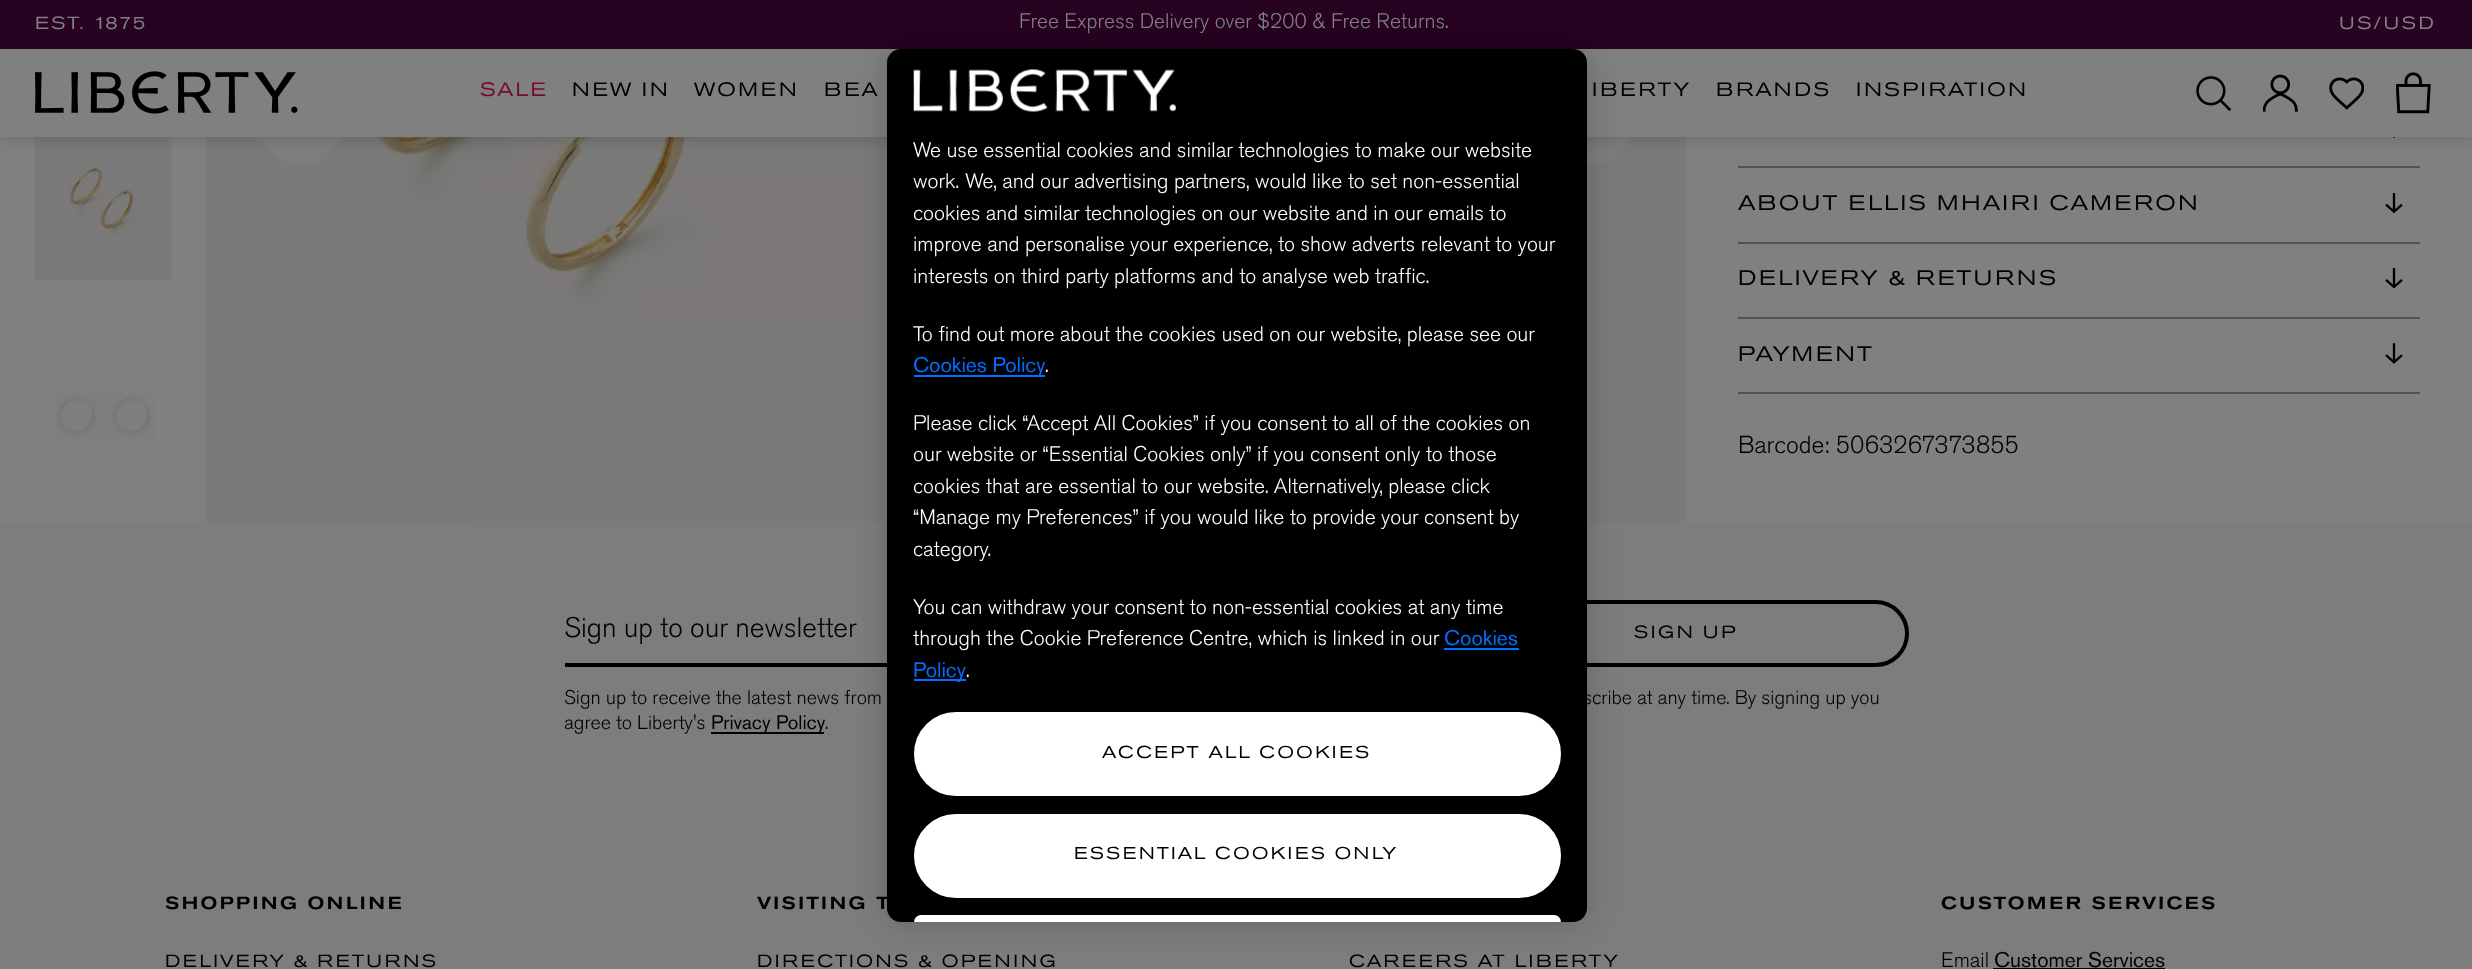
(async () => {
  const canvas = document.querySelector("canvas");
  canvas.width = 2472;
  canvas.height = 969;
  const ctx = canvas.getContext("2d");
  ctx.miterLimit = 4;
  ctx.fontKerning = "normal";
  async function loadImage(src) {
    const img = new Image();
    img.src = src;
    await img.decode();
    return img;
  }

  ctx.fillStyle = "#808080";
  ctx.fillRect(0, 0, 2472, 969);
  ctx.drawImage(await loadImage("img/6.png"), 35, 137, 137, 144);
  ctx.fillStyle = "#7d7d7d";
  ctx.fillRect(207, 137, 680, 385);
  ctx.drawImage(await loadImage("img/8.png"), 206, 137, 665, 385);
  ctx.fillStyle = "#7e7e7e";
  ctx.beginPath();
  ctx.arc(301, 123, 42, 0, Math.PI * 2);
  ctx.fill();
  ctx.fillStyle = "#7a7a7a";
  ctx.fillRect(1587, 137, 99, 385);
  ctx.fillStyle = "#7e7e7e";
  ctx.beginPath();
  ctx.arc(1591, 123, 42, 0, Math.PI * 2);
  ctx.fill();
  ctx.drawImage(await loadImage("img/9.png"), 871, 137, 16, 385);
  ctx.drawImage(await loadImage("img/10.png"), 2393, 137, 2, 1);
  ctx.fillStyle = "rgba(0, 0, 0, 0.2)";
  ctx.filter = "blur(9px)";
  ctx.beginPath();
  ctx.rect(0, 0, 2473, 137);
  ctx.fill();
  ctx.filter = "none";
  ctx.fillStyle = "#808080";
  ctx.fillRect(0, 49, 2472, 88);
  ctx.fillStyle = "#280221";
  ctx.fillRect(0, 0, 2472, 49);
  ctx.drawImage(await loadImage("img/1.png"), 35, 71, 263, 43);
  ctx.drawImage(await loadImage("img/2.png"), 2196, 76, 35, 35);
  ctx.drawImage(await loadImage("img/3.png"), 2263, 74, 35, 38);
  ctx.drawImage(await loadImage("img/4.png"), 2329, 77, 35, 33);
  ctx.drawImage(await loadImage("img/5.png"), 2396, 72, 35, 42);
  ctx.drawImage(await loadImage("img/7.png"), 55, 393, 100, 48);
  ctx.fillStyle = "#525252";
  ctx.fillRect(1738, 166, 682, 2);
  ctx.fillRect(1738, 242, 682, 2);
  ctx.drawImage(await loadImage("img/11.png"), 2385, 193, 18, 21);
  ctx.fillRect(1738, 317, 682, 2);
  ctx.drawImage(await loadImage("img/12.png"), 2385, 268, 18, 21);
  ctx.fillRect(1738, 392, 682, 2);
  ctx.drawImage(await loadImage("img/13.png"), 2385, 343, 18, 21);
  ctx.fillStyle = "#7d7d7d";
  ctx.fillRect(0, 522, 2472, 447);
  ctx.beginPath();
  ctx.roundRect(1467, 602, 440, 63, [0, 31.5, 31.5, 0]);
  ctx.strokeStyle = "#000000";
  ctx.lineWidth = 4;
  ctx.stroke();
  for (const [x, y, w, h, color] of [
    [565, 663, 322, 4, "#000000"],
    [711, 732, 113, 2, "#000000"],
    [1993, 968, 172, 1, "#000000"],
  ]) {
    ctx.fillStyle = color;
    ctx.fillRect(x, y, w, h);
  }
  ctx.fillStyle = "rgba(0, 0, 0, 0.2)";
  ctx.filter = "blur(16px)";
  ctx.beginPath();
  ctx.roundRect(887, 49, 700, 873, 14);
  ctx.fill();
  ctx.filter = "none";
  ctx.fillStyle = "#000000";
  ctx.beginPath();
  ctx.roundRect(887, 49, 700, 873, 14);
  ctx.fill();
  ctx.drawImage(await loadImage("img/14.png"), 913, 69, 263, 43);
  for (const [x, y, w, h, color] of [
    [914, 375, 131, 2, "#006eff"],
    [1444, 648, 75, 2, "#006eff"],
    [914, 679, 52, 2, "#006eff"],
  ]) {
    ctx.fillStyle = color;
    ctx.fillRect(x, y, w, h);
  }
  ctx.fillStyle = "#ffffff";
  ctx.beginPath();
  ctx.roundRect(915, 713, 645, 82, 41);
  ctx.fill();
  ctx.strokeStyle = "#ffffff";
  ctx.lineWidth = 2;
  ctx.stroke();
  ctx.beginPath();
  ctx.roundRect(915, 815, 645, 82, 41);
  ctx.fill();
  ctx.stroke();
  ctx.beginPath();
  ctx.roundRect(914, 915, 647, 7, [42, 42, 0, 0]);
  ctx.fill();
  ctx.letterSpacing = "2.1px";
  ctx.font = "17.5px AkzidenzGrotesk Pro";
  ctx.fillStyle = "#808080";
  ctx.fillText("EST. 1875", 35, 29);
  ctx.letterSpacing = "0px";
  ctx.font = "300 21px AkzidenzGrotesk Pro";
  ctx.fillText("Free Express Delivery over $200 & Free Returns.", 1019, 28);
  ctx.letterSpacing = "2.1px";
  ctx.font = "17.5px AkzidenzGrotesk Pro";
  ctx.fillText("US/USD", 2339, 29);
  ctx.font = "19.25px AkzidenzGrotesk Pro";
  ctx.fillStyle = "#770b2c";
  ctx.fillText("SALE", 480, 96);
  ctx.fillStyle = "#000000";
  for (const [text, x, y] of [
    ["NEW IN", 572, 96],
    ["WOMEN", 694, 96],
    ["BEA", 824, 96],
    ["IBERTY", 1592, 96],
    ["BRANDS", 1716, 96],
    ["INSPIRATION", 1856, 96],
  ]) {
    ctx.fillText(text, x, y);
  }
  ctx.font = "21px AkzidenzGrotesk Pro";
  for (const [text, x, y] of [
    ["ABOUT ELLIS MHAIRI CAMERON", 1738, 210],
    ["DELIVERY & RETURNS", 1738, 285],
    ["PAYMENT", 1738, 361],
  ]) {
    ctx.fillText(text, x, y);
  }
  ctx.letterSpacing = "0px";
  ctx.font = "300 24.5px AkzidenzGrotesk Pro";
  ctx.fillText("Barcode: 5063267373855", 1738, 453);
  ctx.font = "300 28px AkzidenzGrotesk Pro";
  ctx.fillText("Sign up to our newsletter", 564, 637);
  ctx.letterSpacing = "2.1px";
  ctx.font = "17.5px AkzidenzGrotesk Pro";
  ctx.fillText("SIGN UP", 1634, 638);
  ctx.letterSpacing = "0px";
  ctx.font = "300 19.6px AkzidenzGrotesk Pro";
  for (const [text, x, y] of [
    ["Sign up to receive the latest news from", 564, 704],
    ["scribe at any time. By signing up you", 1583, 704],
    ["agree to Liberty's", 564, 729],
  ]) {
    ctx.fillText(text, x, y);
  }
  ctx.font = "19.6px 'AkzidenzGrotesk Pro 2'";
  ctx.fillText("Privacy Policy", 711, 729);
  ctx.font = "300 19.6px AkzidenzGrotesk Pro";
  ctx.fillText(".", 825, 729);
  ctx.letterSpacing = "2.1px";
  ctx.font = "500 17.5px AkzidenzGrotesk Pro";
  ctx.fillText("SHOPPING ONLINE", 165, 909);
  ctx.font = "17.5px AkzidenzGrotesk Pro";
  ctx.fillText("DELIVERY & RETURNS", 165, 967);
  ctx.font = "500 17.5px AkzidenzGrotesk Pro";
  ctx.fillText("VISITING T", 757, 909);
  ctx.font = "17.5px AkzidenzGrotesk Pro";
  ctx.fillText("DIRECTIONS & OPENING", 757, 967);
  ctx.fillText("CAREERS AT LIBERTY", 1349, 967);
  ctx.font = "500 17.5px AkzidenzGrotesk Pro";
  ctx.fillText("CUSTOMER SERVICES", 1941, 909);
  ctx.letterSpacing = "0px";
  ctx.font = "300 21px AkzidenzGrotesk Pro";
  ctx.fillText("Email", 1941, 967);
  ctx.font = "21px 'AkzidenzGrotesk Pro 2'";
  ctx.fillText("Customer Services", 1994, 967);
  ctx.font = "300 21px AkzidenzGrotesk Pro";
  ctx.fillStyle = "#ffffff";
  for (const [text, x, y] of [
    ["We use essential cookies and similar technologies to make our website", 913, 157],
    ["work. We, and our advertising partners, would like to set non-essential", 913, 188],
    ["cookies and similar technologies on our website and in our emails to", 913, 220],
    ["improve and personalise your experience, to show adverts relevant to your", 913, 251],
    ["interests on third party platforms and to analyse web traffic.", 913, 283],
    ["To find out more about the cookies used on our website, please see our", 913, 341],
  ]) {
    ctx.fillText(text, x, y);
  }
  ctx.font = "21px 'AkzidenzGrotesk Pro 2'";
  ctx.fillStyle = "#006eff";
  ctx.fillText("Cookies Policy", 913, 372);
  ctx.font = "300 21px AkzidenzGrotesk Pro";
  ctx.fillStyle = "#ffffff";
  for (const [text, x, y] of [
    [".", 1045, 372],
    ["Please click “Accept All Cookies” if you consent to all of the cookies on", 913, 430],
    ["our website or “Essential Cookies only” if you consent only to those", 913, 461],
    ["cookies that are essential to our website. Alternatively, please click", 913, 493],
    ["“Manage my Preferences” if you would like to provide your consent by", 913, 524],
    ["category.", 913, 556],
    ["You can withdraw your consent to non-essential cookies at any time", 913, 614],
    ["through the Cookie Preference Centre, which is linked in our", 913, 645],
  ]) {
    ctx.fillText(text, x, y);
  }
  ctx.font = "21px 'AkzidenzGrotesk Pro 2'";
  ctx.fillStyle = "#006eff";
  ctx.fillText("Cookies", 1444, 645);
  ctx.fillText("Policy", 913, 677);
  ctx.font = "300 21px AkzidenzGrotesk Pro";
  ctx.fillStyle = "#ffffff";
  ctx.fillText(".", 966, 677);
  ctx.letterSpacing = "2.1px";
  ctx.font = "17.1px AkzidenzGrotesk Pro";
  ctx.fillStyle = "#000000";
  ctx.fillText("ACCEPT ALL COOKIES", 1102, 758);
  ctx.fillText("ESSENTIAL COOKIES ONLY", 1074, 859);
})();
